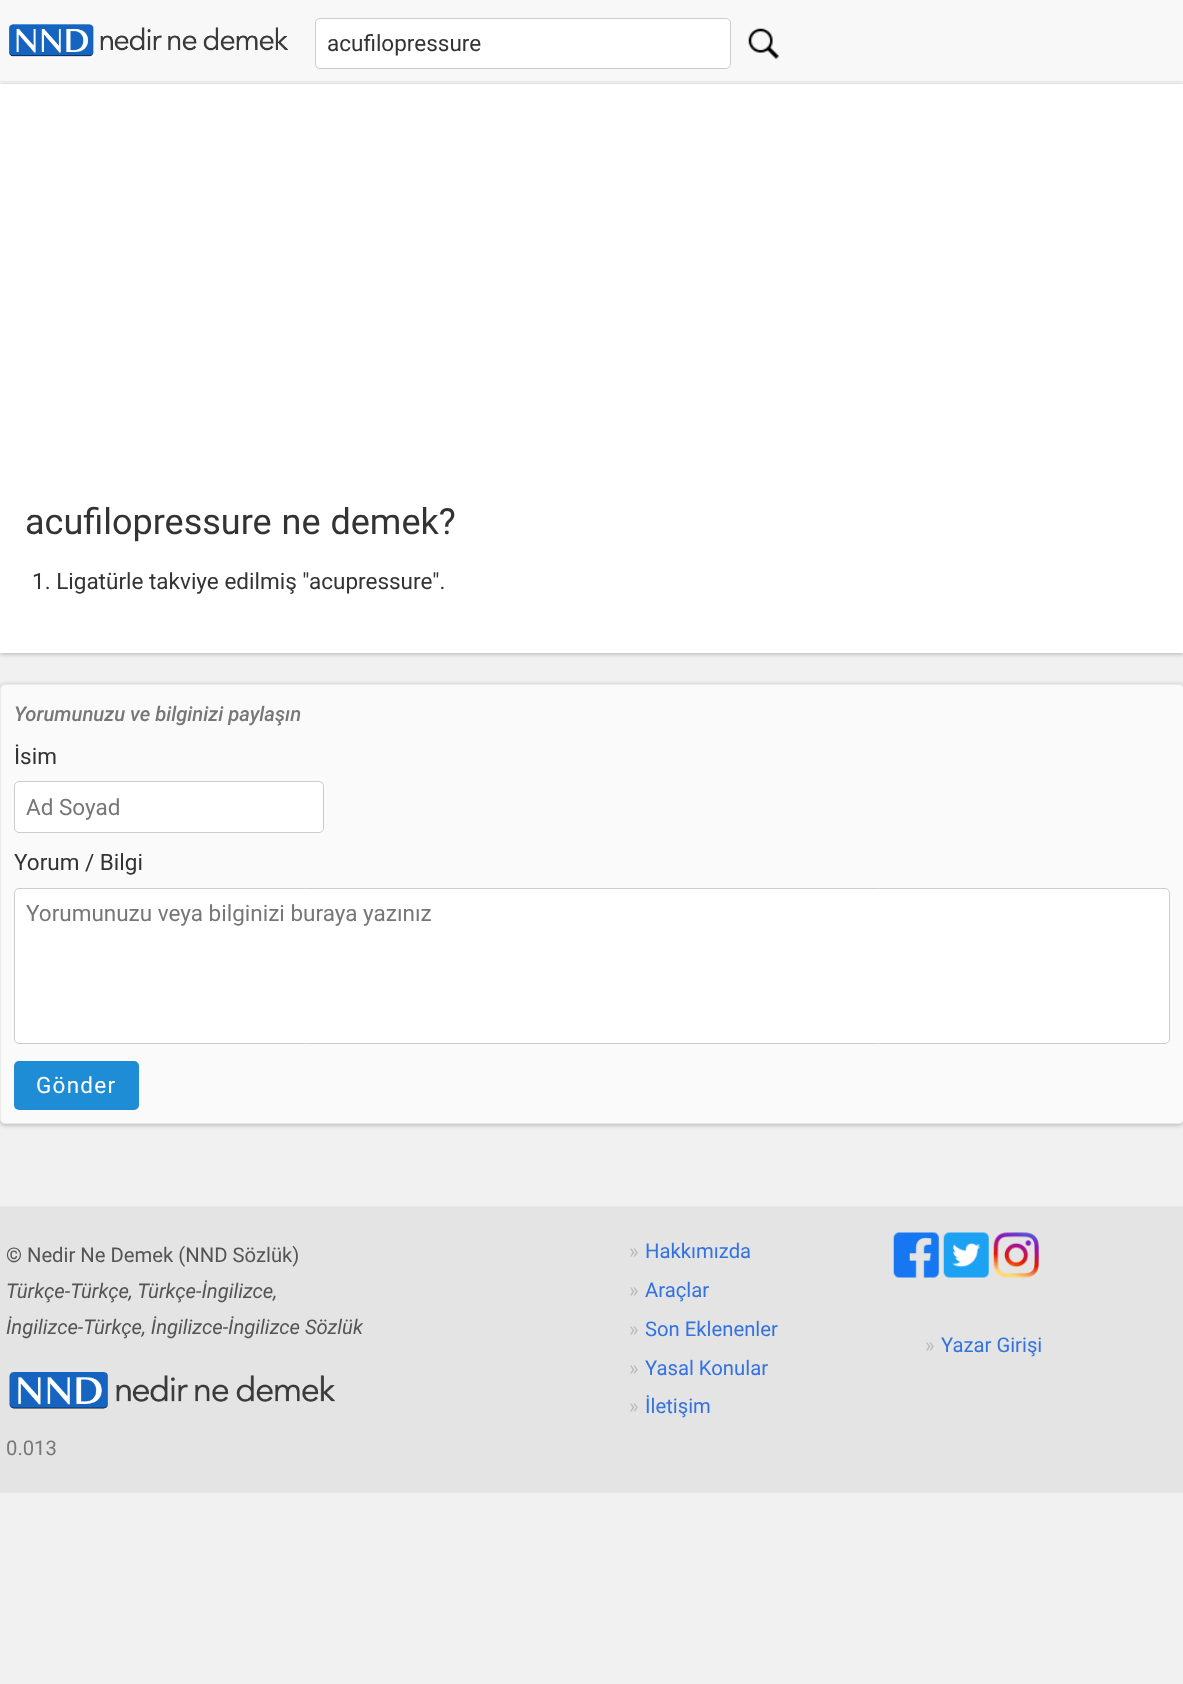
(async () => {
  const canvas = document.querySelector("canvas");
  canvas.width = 1183;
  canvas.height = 1684;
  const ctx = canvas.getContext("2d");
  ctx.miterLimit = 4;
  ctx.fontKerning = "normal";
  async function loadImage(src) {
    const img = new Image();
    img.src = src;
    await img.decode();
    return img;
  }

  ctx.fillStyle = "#f1f1f1";
  ctx.fillRect(0, 0, 1183, 1684);
  ctx.fillStyle = "#f8f8f8";
  ctx.fillRect(0, 0, 1183, 83);
  ctx.fillStyle = "#eeeeee";
  ctx.fillRect(0, 81, 1183, 1);
  ctx.drawImage(await loadImage("img/1.png"), 9, 24, 280, 33);
  ctx.fillStyle = "#ffffff";
  ctx.beginPath();
  ctx.roundRect(315.5, 18.5, 415, 50, 4.5);
  ctx.fill();
  ctx.strokeStyle = "#cccccc";
  ctx.stroke();
  ctx.drawImage(await loadImage("img/2.png"), 748, 28, 31, 31);
  ctx.fillStyle = "rgba(0, 0, 0, 0.25)";
  ctx.filter = "blur(2.5px)";
  ctx.beginPath();
  ctx.rect(0, 85, 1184, 569);
  ctx.fill();
  ctx.filter = "none";
  ctx.fillStyle = "#ffffff";
  ctx.fillRect(0, 84, 1183, 569);
  ctx.fillStyle = "rgba(0, 0, 0, 0.25)";
  ctx.filter = "blur(2.5px)";
  ctx.beginPath();
  ctx.roundRect(0, 685, 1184, 440, 5);
  ctx.fill();
  ctx.filter = "none";
  ctx.fillStyle = "#fafafa";
  ctx.beginPath();
  ctx.roundRect(0.5, 684.5, 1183, 439, 4.5);
  ctx.fill();
  ctx.strokeStyle = "#eaeaea";
  ctx.stroke();
  ctx.fillStyle = "#ffffff";
  ctx.beginPath();
  ctx.roundRect(14.5, 781.5, 309, 51, 4.5);
  ctx.fill();
  ctx.strokeStyle = "#cccccc";
  ctx.stroke();
  ctx.beginPath();
  ctx.roundRect(14.5, 888.5, 1155, 155, 4.5);
  ctx.fill();
  ctx.stroke();
  ctx.fillStyle = "#1f8dd6";
  ctx.beginPath();
  ctx.roundRect(14, 1061, 125, 49, 5);
  ctx.fill();
  ctx.fillStyle = "#e4e4e4";
  ctx.fillRect(0, 1207, 1183, 286);
  ctx.fillStyle = "#eaeaea";
  ctx.fillRect(0, 1206, 1183, 1);
  ctx.drawImage(await loadImage("img/3.png"), 9, 1372, 327, 37);
  ctx.drawImage(await loadImage("img/4.png"), 893, 1232, 46, 46);
  ctx.drawImage(await loadImage("img/5.png"), 943, 1232, 46, 46);
  ctx.drawImage(await loadImage("img/6.png"), 993, 1232, 46, 46);
  ctx.font = "22.5px Roboto";
  ctx.fillStyle = "#333333";
  ctx.fillText("acufilopressure", 327, 51);
  ctx.wordSpacing = "1px";
  ctx.font = "36px Roboto";
  ctx.fillText("acufilopressure ne demek?", 25, 534);
  ctx.wordSpacing = "0px";
  ctx.font = "22.5px Roboto";
  ctx.fillText("1. Ligatürle takviye edilmiş \"acupressure\".", 32, 589);
  ctx.font = "italic 500 20.25px Roboto";
  ctx.fillStyle = "#777777";
  ctx.fillText("Yorumunuzu ve bilginizi paylaşın", 14, 721);
  ctx.font = "22.5px Roboto";
  ctx.fillStyle = "#333333";
  ctx.fillText("İsim", 14, 764);
  ctx.fillStyle = "#777777";
  ctx.fillText("Ad Soyad", 26, 815);
  ctx.fillStyle = "#333333";
  ctx.fillText("Yorum / Bilgi", 14, 870);
  ctx.fillStyle = "#777777";
  ctx.fillText("Yorumunuzu veya bilginizi buraya yazınız", 26, 921);
  ctx.letterSpacing = "1.25px";
  ctx.fillStyle = "#ffffff";
  ctx.fillText("Gönder", 36, 1093);
  ctx.letterSpacing = "0px";
  ctx.font = "20.25px Roboto";
  ctx.fillStyle = "#555555";
  ctx.fillText("© Nedir Ne Demek (NND Sözlük)", 6, 1262);
  ctx.font = "italic 20.25px Roboto";
  ctx.fillText("Türkçe-Türkçe, Türkçe-İngilizce,", 6, 1298);
  ctx.fillText("İngilizce-Türkçe, İngilizce-İngilizce Sözlük", 6, 1334);
  ctx.font = "20.25px Roboto";
  ctx.fillStyle = "#777777";
  ctx.fillText("0.013", 6, 1455);
  ctx.fillStyle = "#bbbbbb";
  ctx.fillText("»", 629, 1258);
  ctx.fillStyle = "#3372df";
  ctx.fillText("Hakkımızda", 645, 1258);
  ctx.fillStyle = "#bbbbbb";
  ctx.fillText("»", 629, 1297);
  ctx.fillStyle = "#3372df";
  ctx.fillText("Araçlar", 645, 1297);
  ctx.fillStyle = "#bbbbbb";
  ctx.fillText("»", 629, 1336);
  ctx.fillStyle = "#3372df";
  ctx.fillText("Son Eklenenler", 645, 1336);
  ctx.fillStyle = "#bbbbbb";
  ctx.fillText("»", 629, 1375);
  ctx.fillStyle = "#3372df";
  ctx.fillText("Yasal Konular", 645, 1375);
  ctx.fillStyle = "#bbbbbb";
  ctx.fillText("»", 629, 1413);
  ctx.fillStyle = "#3372df";
  ctx.fillText("İletişim", 645, 1413);
  ctx.fillStyle = "#bbbbbb";
  ctx.fillText("»", 925, 1352);
  ctx.fillStyle = "#3372df";
  ctx.fillText("Yazar Girişi", 941, 1352);
})();
